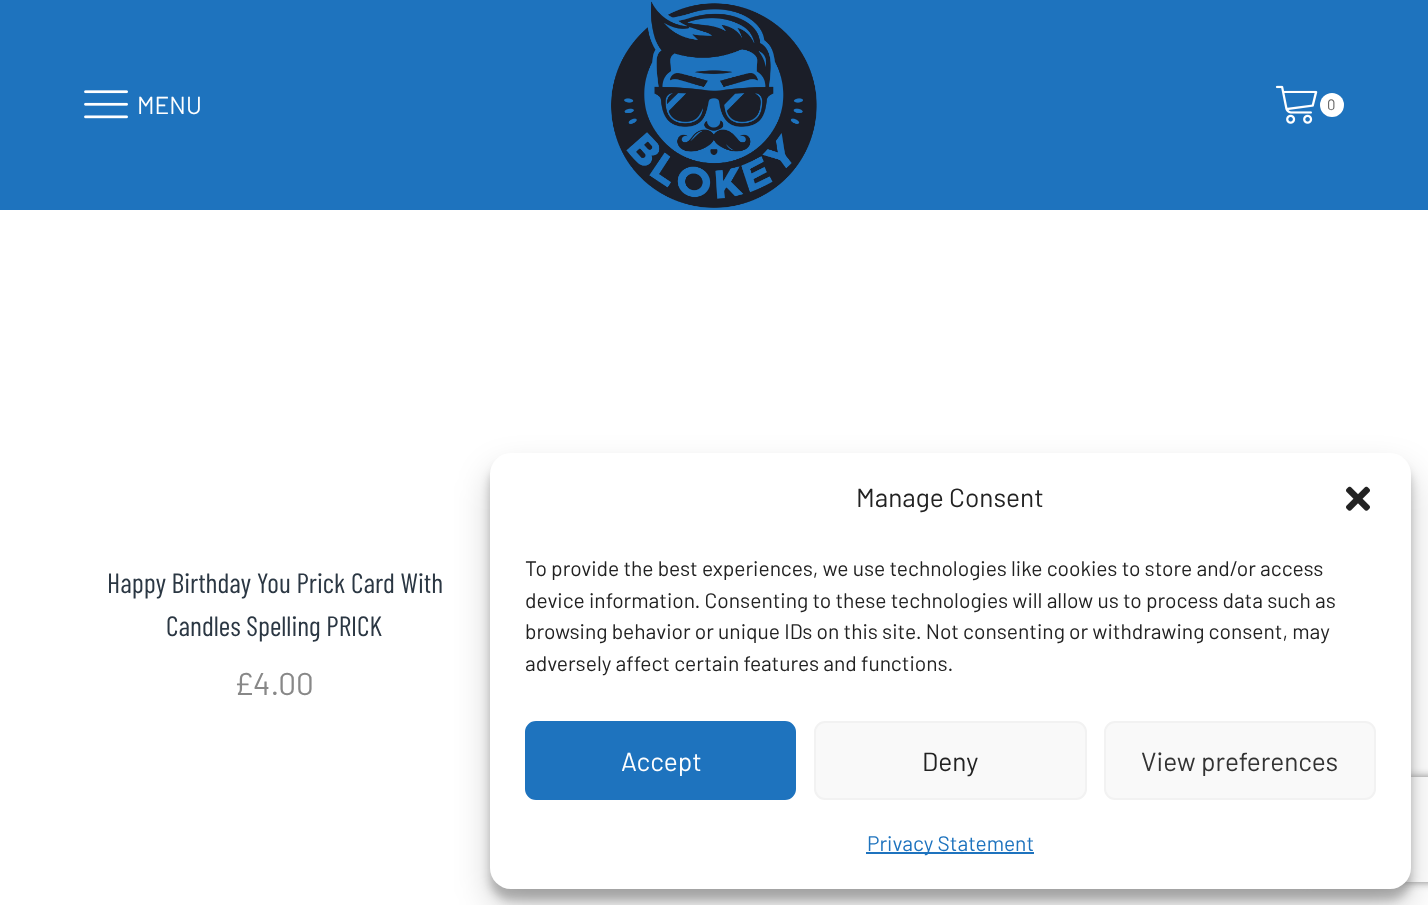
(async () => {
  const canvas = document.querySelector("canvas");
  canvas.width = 1428;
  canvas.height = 905;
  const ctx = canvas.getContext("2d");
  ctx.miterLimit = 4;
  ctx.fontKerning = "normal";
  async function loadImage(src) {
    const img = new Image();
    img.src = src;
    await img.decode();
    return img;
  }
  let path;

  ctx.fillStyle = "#ffffff";
  ctx.fillRect(0, 0, 1428, 905);
  ctx.fillStyle = "#1e73be";
  ctx.fillRect(0, 0, 1428, 210);
  ctx.drawImage(await loadImage("img/1.png"), 84, 90, 44, 29);
  ctx.drawImage(await loadImage("img/2.png"), 611, 1, 206, 207);
  ctx.drawImage(await loadImage("img/3.png"), 1275, 85, 43, 39);
  ctx.fillStyle = "#ffffff";
  ctx.beginPath();
  ctx.arc(1332, 105, 12, 0, Math.PI * 2);
  ctx.fill();
  ctx.fillStyle = "rgba(0, 0, 0, 0.23)";
  ctx.filter = "blur(5px)";
  ctx.beginPath();
  ctx.roundRect(490, 464, 921, 436, 21);
  ctx.fill();
  ctx.filter = "none";
  ctx.fillStyle = "rgba(0, 0, 0, 0.19)";
  ctx.filter = "blur(17.5px)";
  ctx.beginPath();
  ctx.roundRect(490, 471, 921, 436, 21);
  ctx.fill();
  ctx.filter = "none";
  ctx.save();
  path = new Path2D("M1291 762H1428V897H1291ZM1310 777H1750C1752 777 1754 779 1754 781V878C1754 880 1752 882 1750 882H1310C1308 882 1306 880 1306 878V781C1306 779 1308 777 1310 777Z");
  ctx.clip(path, "evenodd");
  ctx.fillStyle = "#808080";
  ctx.filter = "blur(4.5px)";
  ctx.beginPath();
  ctx.roundRect(1306, 777, 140, 105, 4);
  ctx.fill();
  ctx.filter = "none";
  ctx.restore();
  ctx.fillStyle = "#ffffff";
  ctx.beginPath();
  ctx.roundRect(490, 453, 921, 436, 21);
  ctx.fill();
  ctx.drawImage(await loadImage("img/4.png"), 1346, 486, 24, 25);
  ctx.fillStyle = "#1e73be";
  ctx.beginPath();
  ctx.roundRect(526, 722, 269, 77, 10);
  ctx.fill();
  ctx.strokeStyle = "#1e73be";
  ctx.lineWidth = 2;
  ctx.stroke();
  ctx.fillStyle = "#f9f9f9";
  ctx.beginPath();
  ctx.roundRect(815, 722, 271, 77, 10);
  ctx.fill();
  ctx.strokeStyle = "#f2f2f2";
  ctx.stroke();
  ctx.beginPath();
  ctx.roundRect(1105, 722, 270, 77, 10);
  ctx.fill();
  ctx.stroke();
  ctx.fillStyle = "#1e73be";
  ctx.fillRect(866, 852, 168, 2);
  ctx.font = "24.5px Barlow";
  ctx.fillStyle = "#ffffff";
  ctx.fillText("MENU", 137, 114);
  ctx.font = "15px Barlow";
  ctx.fillStyle = "#636363";
  ctx.fillText("0", 1327, 110);
  ctx.font = "28px Barlow Condensed";
  ctx.fillStyle = "#2b3743";
  ctx.fillText("Happy Birthday You Prick Card With", 107, 593);
  ctx.fillText("Candles Spelling PRICK", 166, 636);
  ctx.font = "31.5px Barlow";
  ctx.fillStyle = "#888888";
  ctx.fillText("£4.00", 234, 695);
  ctx.font = "26.25px Barlow";
  ctx.fillStyle = "#222222";
  ctx.fillText("Manage Consent", 856, 507);
  ctx.font = "21px Barlow";
  for (const [text, x, y] of [
    ["To provide the best experiences, we use technologies like cookies to store and/or access", 525, 576],
    ["device information. Consenting to these technologies will allow us to process data such as", 525, 608],
    ["browsing behavior or unique IDs on this site. Not consenting or withdrawing consent, may", 525, 639],
    ["adversely affect certain features and functions.", 525, 671],
  ]) {
    ctx.fillText(text, x, y);
  }
  ctx.font = "26.25px Barlow";
  ctx.fillStyle = "#ffffff";
  ctx.fillText("Accept", 621, 771);
  ctx.fillStyle = "#222222";
  ctx.fillText("Deny", 922, 771);
  ctx.fillStyle = "#333333";
  ctx.fillText("View preferences", 1141, 771);
  ctx.font = "21px Barlow";
  ctx.fillStyle = "#1e73be";
  ctx.fillText("Privacy Statement", 867, 851);
})();
